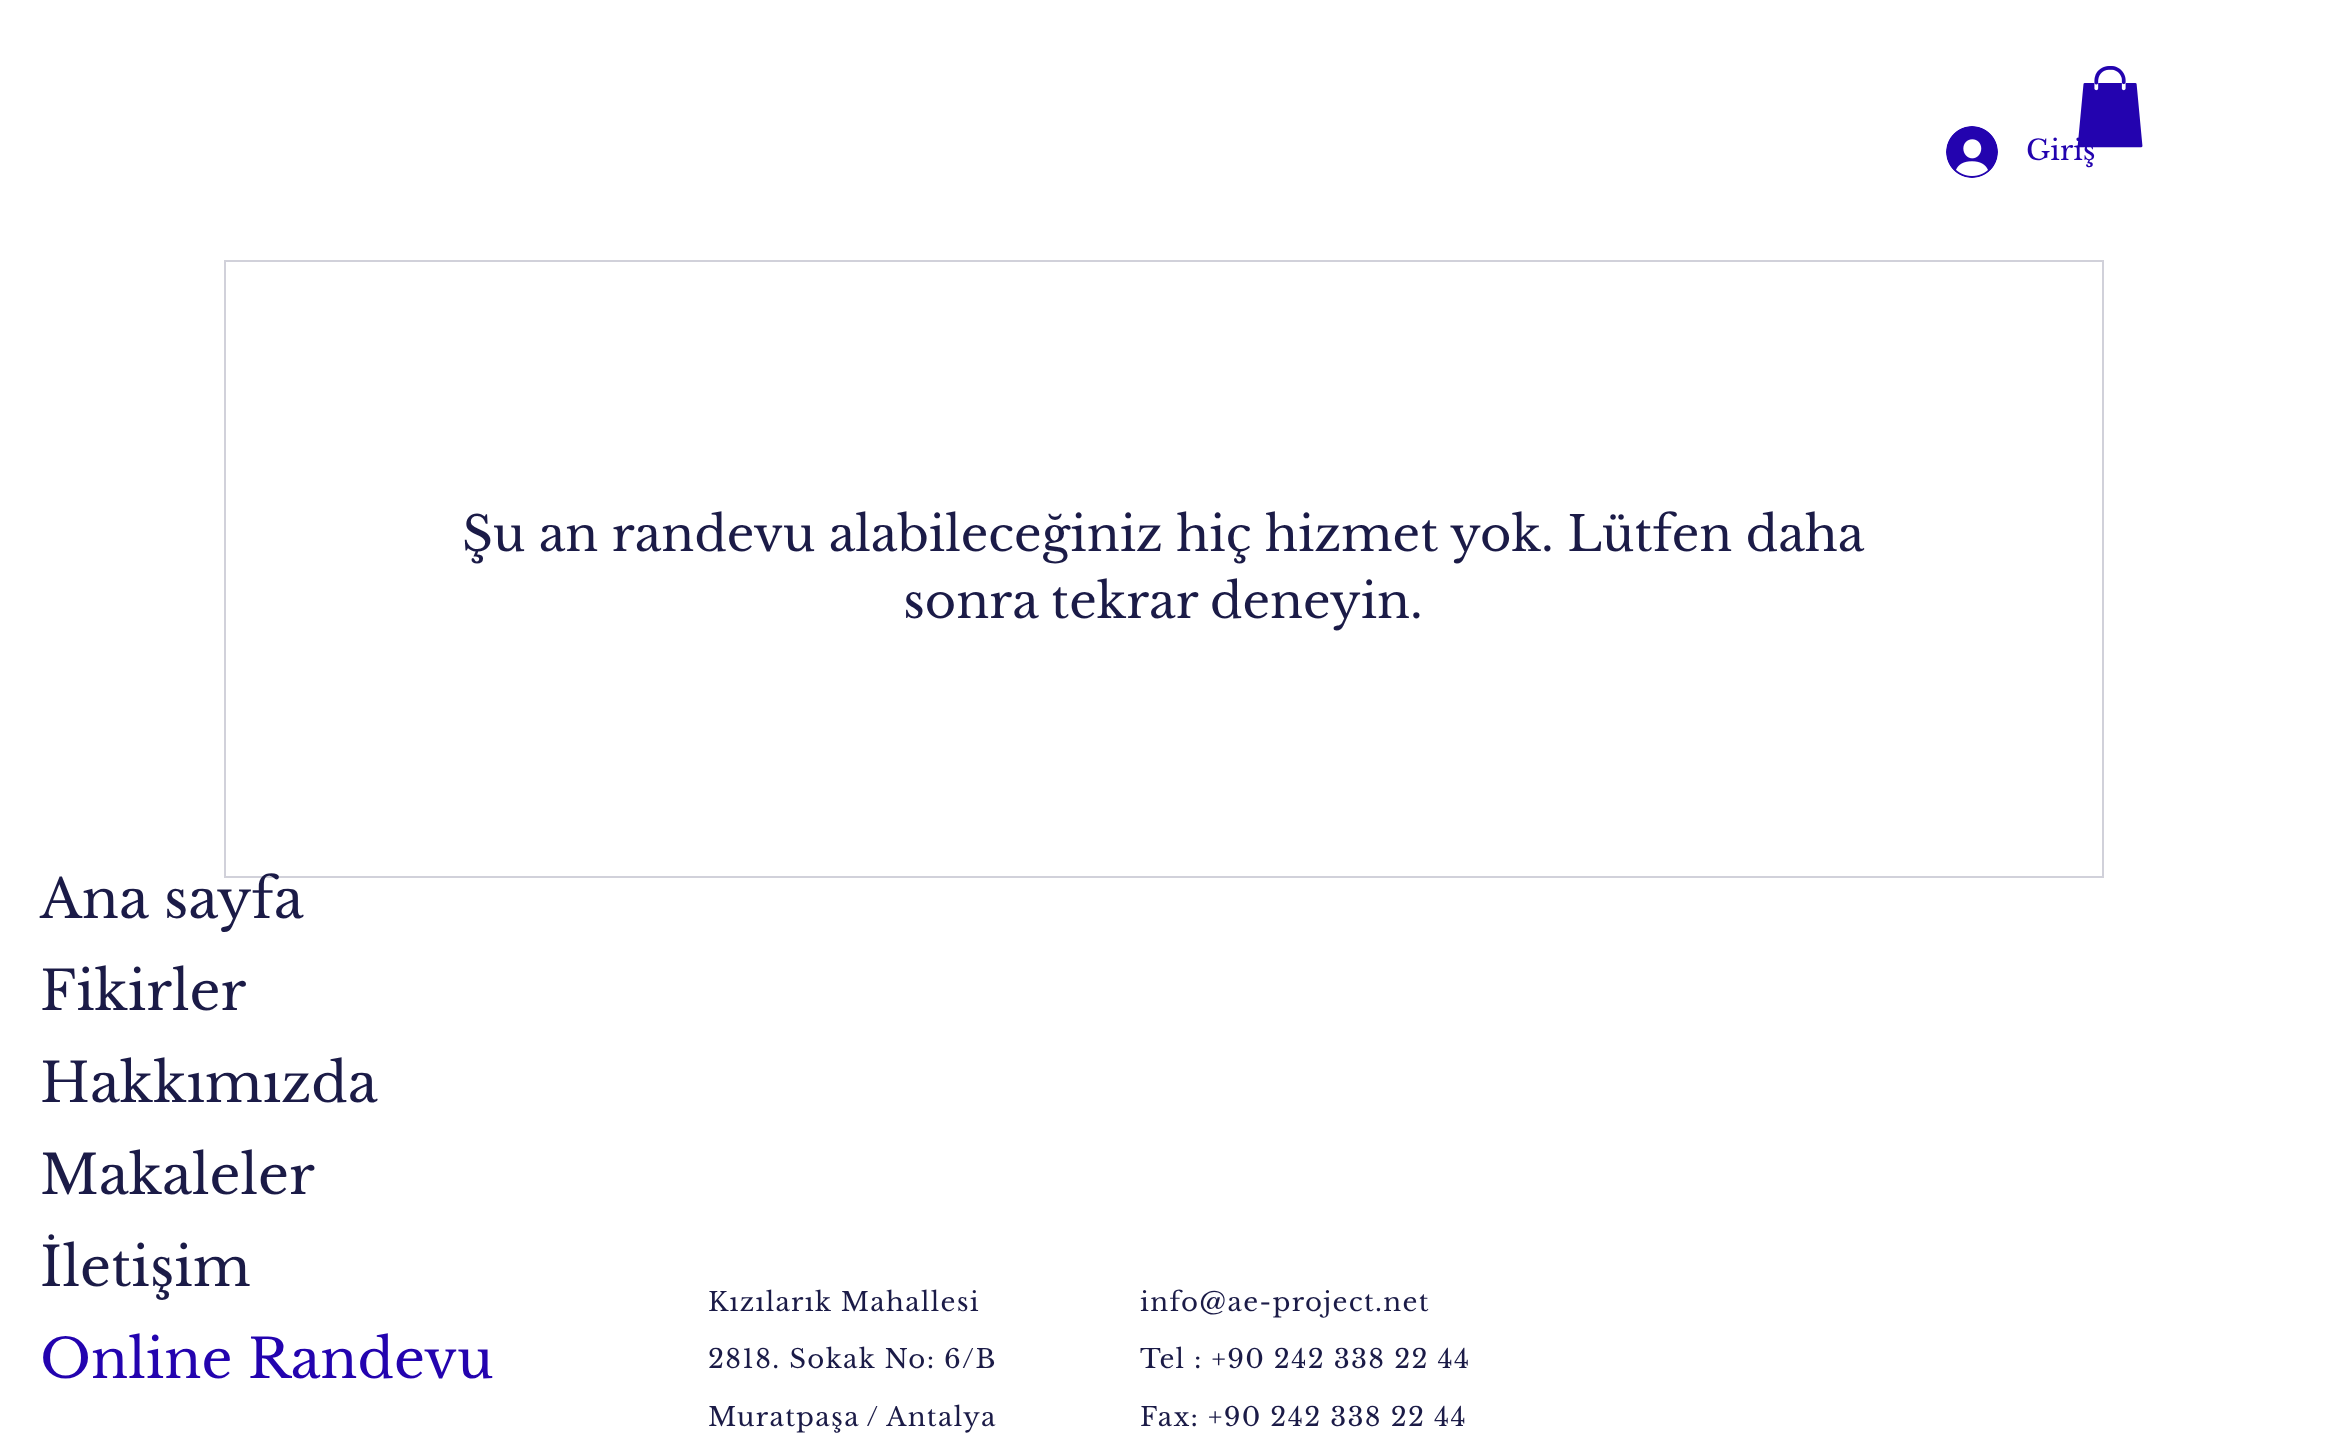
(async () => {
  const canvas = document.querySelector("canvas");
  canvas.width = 2328;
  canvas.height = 1445;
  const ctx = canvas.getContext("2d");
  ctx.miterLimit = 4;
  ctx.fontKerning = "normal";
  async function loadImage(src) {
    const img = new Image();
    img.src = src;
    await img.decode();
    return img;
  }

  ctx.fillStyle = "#ffffff";
  ctx.fillRect(0, 0, 2328, 1445);
  ctx.drawImage(await loadImage("img/2.png"), 1946, 126, 52, 52);
  ctx.strokeStyle = "#d1d1da";
  ctx.lineWidth = 2;
  ctx.strokeRect(225, 261, 1878, 616);
  ctx.font = "28px Libre Baskerville";
  ctx.fillStyle = "#2303af";
  ctx.fillText("Giriş", 2026, 160);
  ctx.drawImage(await loadImage("img/1.png"), 2077, 66, 66, 82);
  ctx.wordSpacing = "-0.25px";
  ctx.font = "48px Libre Baskerville";
  ctx.fillStyle = "#1b1b47";
  ctx.fillText("Şu an randevu alabileceğiniz hiç hizmet yok. Lütfen daha", 462, 551);
  ctx.wordSpacing = "-1px";
  ctx.fillText("sonra tekrar deneyin.", 903, 618);
  ctx.wordSpacing = "0px";
  ctx.font = "54px Libre Baskerville";
  for (const [text, x, y] of [
    ["Ana sayfa", 40, 918],
    ["Fikirler", 40, 1010],
    ["Hakkımızda", 40, 1102],
    ["Makaleler", 40, 1194],
    ["İletişim", 40, 1286],
  ]) {
    ctx.fillText(text, x, y);
  }
  ctx.fillStyle = "#2303af";
  ctx.fillText("Online Randevu", 40, 1378);
  ctx.letterSpacing = "1.3px";
  ctx.font = "26px Libre Baskerville";
  ctx.fillStyle = "#1b1b47";
  ctx.fillText("Kızılarık Mahallesi", 708, 1311);
  ctx.fillText("2818. Sokak No: 6/B", 708, 1368);
  ctx.wordSpacing = "-1px";
  ctx.fillText("Muratpaşa / Antalya", 708, 1426);
  ctx.wordSpacing = "0px";
  for (const [text, x, y] of [
    ["info@ae-project.net", 1140, 1311],
    ["Tel : +90 242 338 22 44", 1140, 1368],
    ["Fax: +90 242 338 22 44", 1140, 1426],
  ]) {
    ctx.fillText(text, x, y);
  }
})();
